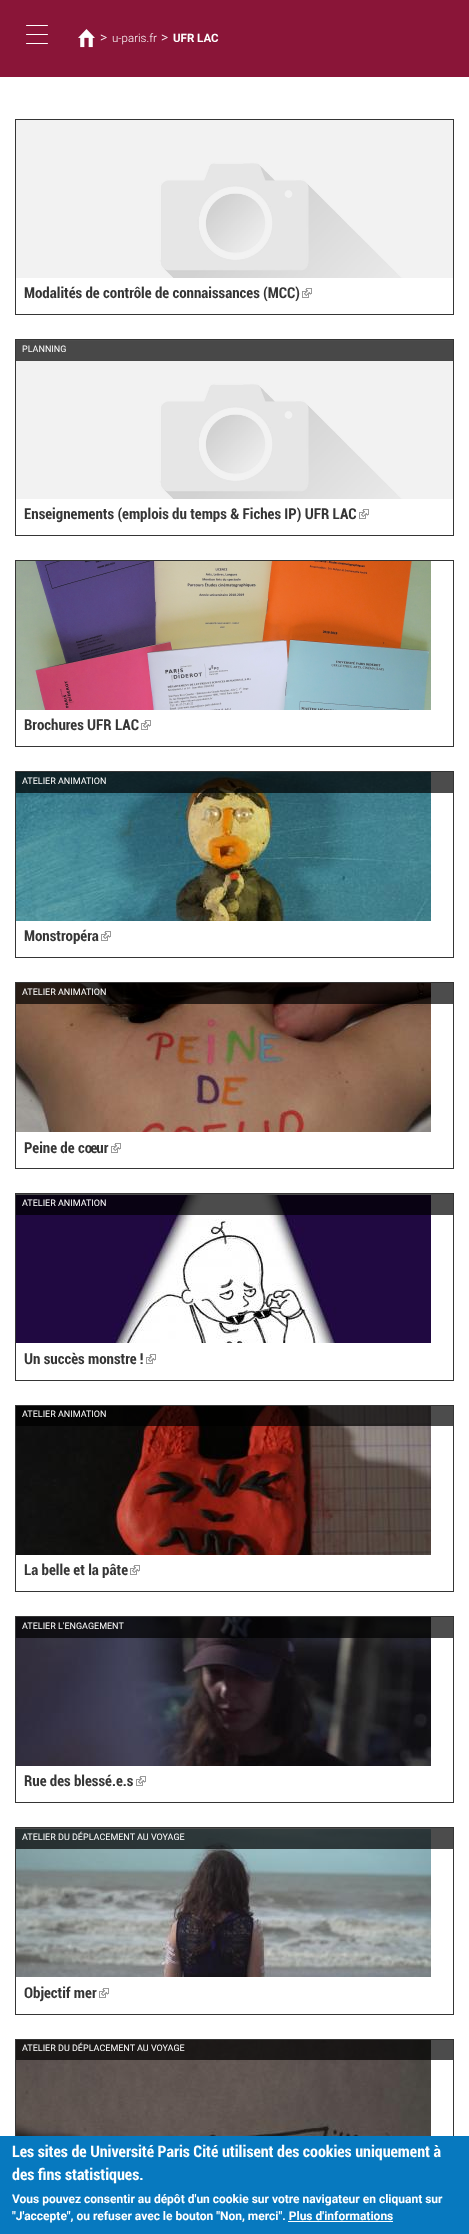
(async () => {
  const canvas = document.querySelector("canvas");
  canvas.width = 469;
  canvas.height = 2234;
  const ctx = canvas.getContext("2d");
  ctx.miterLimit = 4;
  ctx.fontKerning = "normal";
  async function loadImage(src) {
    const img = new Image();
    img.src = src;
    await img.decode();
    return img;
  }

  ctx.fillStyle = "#ffffff";
  ctx.fillRect(0, 0, 469, 2234);
  ctx.fillStyle = "#8a1538";
  ctx.fillRect(0, 0, 469, 77);
  ctx.fillStyle = "#ffffff";
  ctx.beginPath();
  ctx.roundRect(26, 25, 22, 1, 0.5);
  ctx.fill();
  ctx.beginPath();
  ctx.roundRect(26, 34, 22, 1, 0.5);
  ctx.fill();
  ctx.beginPath();
  ctx.roundRect(26, 43, 22, 1, 0.5);
  ctx.fill();
  ctx.drawImage(await loadImage("img/1.png"), 78, 29, 17, 19);
  ctx.strokeStyle = "#353535";
  ctx.strokeRect(15.5, 119.5, 438, 195);
  ctx.drawImage(await loadImage("img/2.png"), 16, 120, 437, 158);
  ctx.drawImage(await loadImage("img/3.png"), 302, 288, 10, 10);
  ctx.strokeRect(15.5, 339.5, 438, 196);
  ctx.drawImage(await loadImage("img/2.png"), 16, 341, 437, 158);
  ctx.fillStyle = "rgba(0, 0, 0, 0.7)";
  ctx.fillRect(16, 340, 437, 21);
  ctx.drawImage(await loadImage("img/3.png"), 359, 509, 10, 10);
  ctx.strokeRect(15.5, 560.5, 438, 186);
  ctx.drawImage(await loadImage("img/4.png"), 16, 561, 415, 149);
  ctx.drawImage(await loadImage("img/3.png"), 141, 720, 10, 10);
  ctx.strokeRect(15.5, 771.5, 438, 186);
  ctx.drawImage(await loadImage("img/5.png"), 16, 772, 415, 149);
  ctx.fillRect(16, 772, 437, 21);
  ctx.drawImage(await loadImage("img/3.png"), 101, 931, 10, 10);
  ctx.strokeRect(15.5, 982.5, 438, 186);
  ctx.drawImage(await loadImage("img/6.png"), 16, 983, 415, 149);
  ctx.fillRect(16, 983, 437, 21);
  ctx.drawImage(await loadImage("img/3.png"), 111, 1143, 10, 10);
  ctx.strokeRect(15.5, 1193.5, 438, 187);
  ctx.drawImage(await loadImage("img/7.png"), 16, 1195, 415, 148);
  ctx.fillRect(16, 1194, 437, 21);
  ctx.drawImage(await loadImage("img/3.png"), 146, 1354, 10, 10);
  ctx.strokeRect(15.5, 1405.5, 438, 186);
  ctx.drawImage(await loadImage("img/8.png"), 16, 1406, 415, 149);
  ctx.fillRect(16, 1406, 437, 20);
  ctx.drawImage(await loadImage("img/3.png"), 130, 1565, 10, 10);
  ctx.strokeRect(15.5, 1616.5, 438, 186);
  ctx.drawImage(await loadImage("img/9.png"), 16, 1617, 415, 149);
  ctx.fillRect(16, 1617, 437, 21);
  ctx.drawImage(await loadImage("img/3.png"), 136, 1776, 10, 10);
  ctx.strokeRect(15.5, 1827.5, 438, 187);
  ctx.drawImage(await loadImage("img/10.png"), 16, 1829, 415, 148);
  ctx.fillRect(16, 1828, 437, 21);
  ctx.drawImage(await loadImage("img/3.png"), 99, 1988, 10, 10);
  ctx.strokeRect(15.5, 2039.5, 438, 186);
  ctx.drawImage(await loadImage("img/11.png"), 16, 2040, 415, 96);
  for (const [x, y, w, h, color] of [
    [16, 2040, 437, 20, "rgba(0, 0, 0, 0.7)"],
    [0, 2136, 469, 98, "#0779bf"],
    [288, 2221, 105, 1, "#ffffff"],
  ]) {
    ctx.fillStyle = color;
    ctx.fillRect(x, y, w, h);
  }
  ctx.font = "300 14px Roboto";
  ctx.fillText(">", 100, 42);
  ctx.font = "300 11.5px Roboto";
  ctx.fillText("u-paris.fr", 112, 42);
  ctx.font = "300 14px Roboto";
  ctx.fillText(">", 161, 42);
  ctx.font = "bold 11.5px 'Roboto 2'";
  ctx.fillText("UFR LAC", 173, 42);
  ctx.font = "bold 15px Roboto";
  ctx.fillStyle = "#353535";
  ctx.fillText("Modalités de contrôle de connaissances (MCC)", 24, 298);
  ctx.font = "9px Roboto";
  ctx.fillStyle = "#ffffff";
  ctx.fillText("PLANNING", 22, 352);
  ctx.font = "bold 15px Roboto";
  ctx.fillStyle = "#353535";
  ctx.fillText("Enseignements (emplois du temps & Fiches IP) UFR LAC", 24, 519);
  ctx.fillText("Brochures UFR LAC", 24, 730);
  ctx.font = "9px Roboto";
  ctx.fillStyle = "#ffffff";
  ctx.fillText("ATELIER ANIMATION", 22, 784);
  ctx.font = "bold 15px Roboto";
  ctx.fillStyle = "#353535";
  ctx.fillText("Monstropéra", 24, 941);
  ctx.font = "9px Roboto";
  ctx.fillStyle = "#ffffff";
  ctx.fillText("ATELIER ANIMATION", 22, 995);
  ctx.font = "bold 15px Roboto";
  ctx.fillStyle = "#353535";
  ctx.fillText("Peine de cœur", 24, 1153);
  ctx.font = "9px Roboto";
  ctx.fillStyle = "#ffffff";
  ctx.fillText("ATELIER ANIMATION", 22, 1206);
  ctx.font = "bold 15px Roboto";
  ctx.fillStyle = "#353535";
  ctx.fillText("Un succès monstre !", 24, 1364);
  ctx.font = "9px Roboto";
  ctx.fillStyle = "#ffffff";
  ctx.fillText("ATELIER ANIMATION", 22, 1417);
  ctx.font = "bold 15px Roboto";
  ctx.fillStyle = "#353535";
  ctx.fillText("La belle et la pâte", 24, 1575);
  ctx.font = "9px Roboto";
  ctx.fillStyle = "#ffffff";
  ctx.fillText("ATELIER L'ENGAGEMENT", 22, 1629);
  ctx.font = "bold 15px Roboto";
  ctx.fillStyle = "#353535";
  ctx.fillText("Rue des blessé.e.s", 24, 1786);
  ctx.font = "9px Roboto";
  ctx.fillStyle = "#ffffff";
  ctx.fillText("ATELIER DU DÉPLACEMENT AU VOYAGE", 22, 1840);
  ctx.font = "bold 15px Roboto";
  ctx.fillStyle = "#353535";
  ctx.fillText("Objectif mer", 24, 1998);
  ctx.font = "9px Roboto";
  ctx.fillStyle = "#ffffff";
  ctx.fillText("ATELIER DU DÉPLACEMENT AU VOYAGE", 22, 2051);
  ctx.font = "bold 16px Roboto";
  ctx.fillText("Les sites de Université Paris Cité utilisent des cookies uniquement à", 12, 2157);
  ctx.fillText("des fins statistiques.", 12, 2180);
  ctx.font = "bold 12px 'Roboto 2'";
  ctx.fillText("Vous pouvez consentir au dépôt d'un cookie sur votre navigateur en cliquant sur", 12, 2203);
  ctx.fillText("\"J'accepte\", ou refuser avec le bouton \"Non, merci\". Plus d'informations", 12, 2220);
})();
